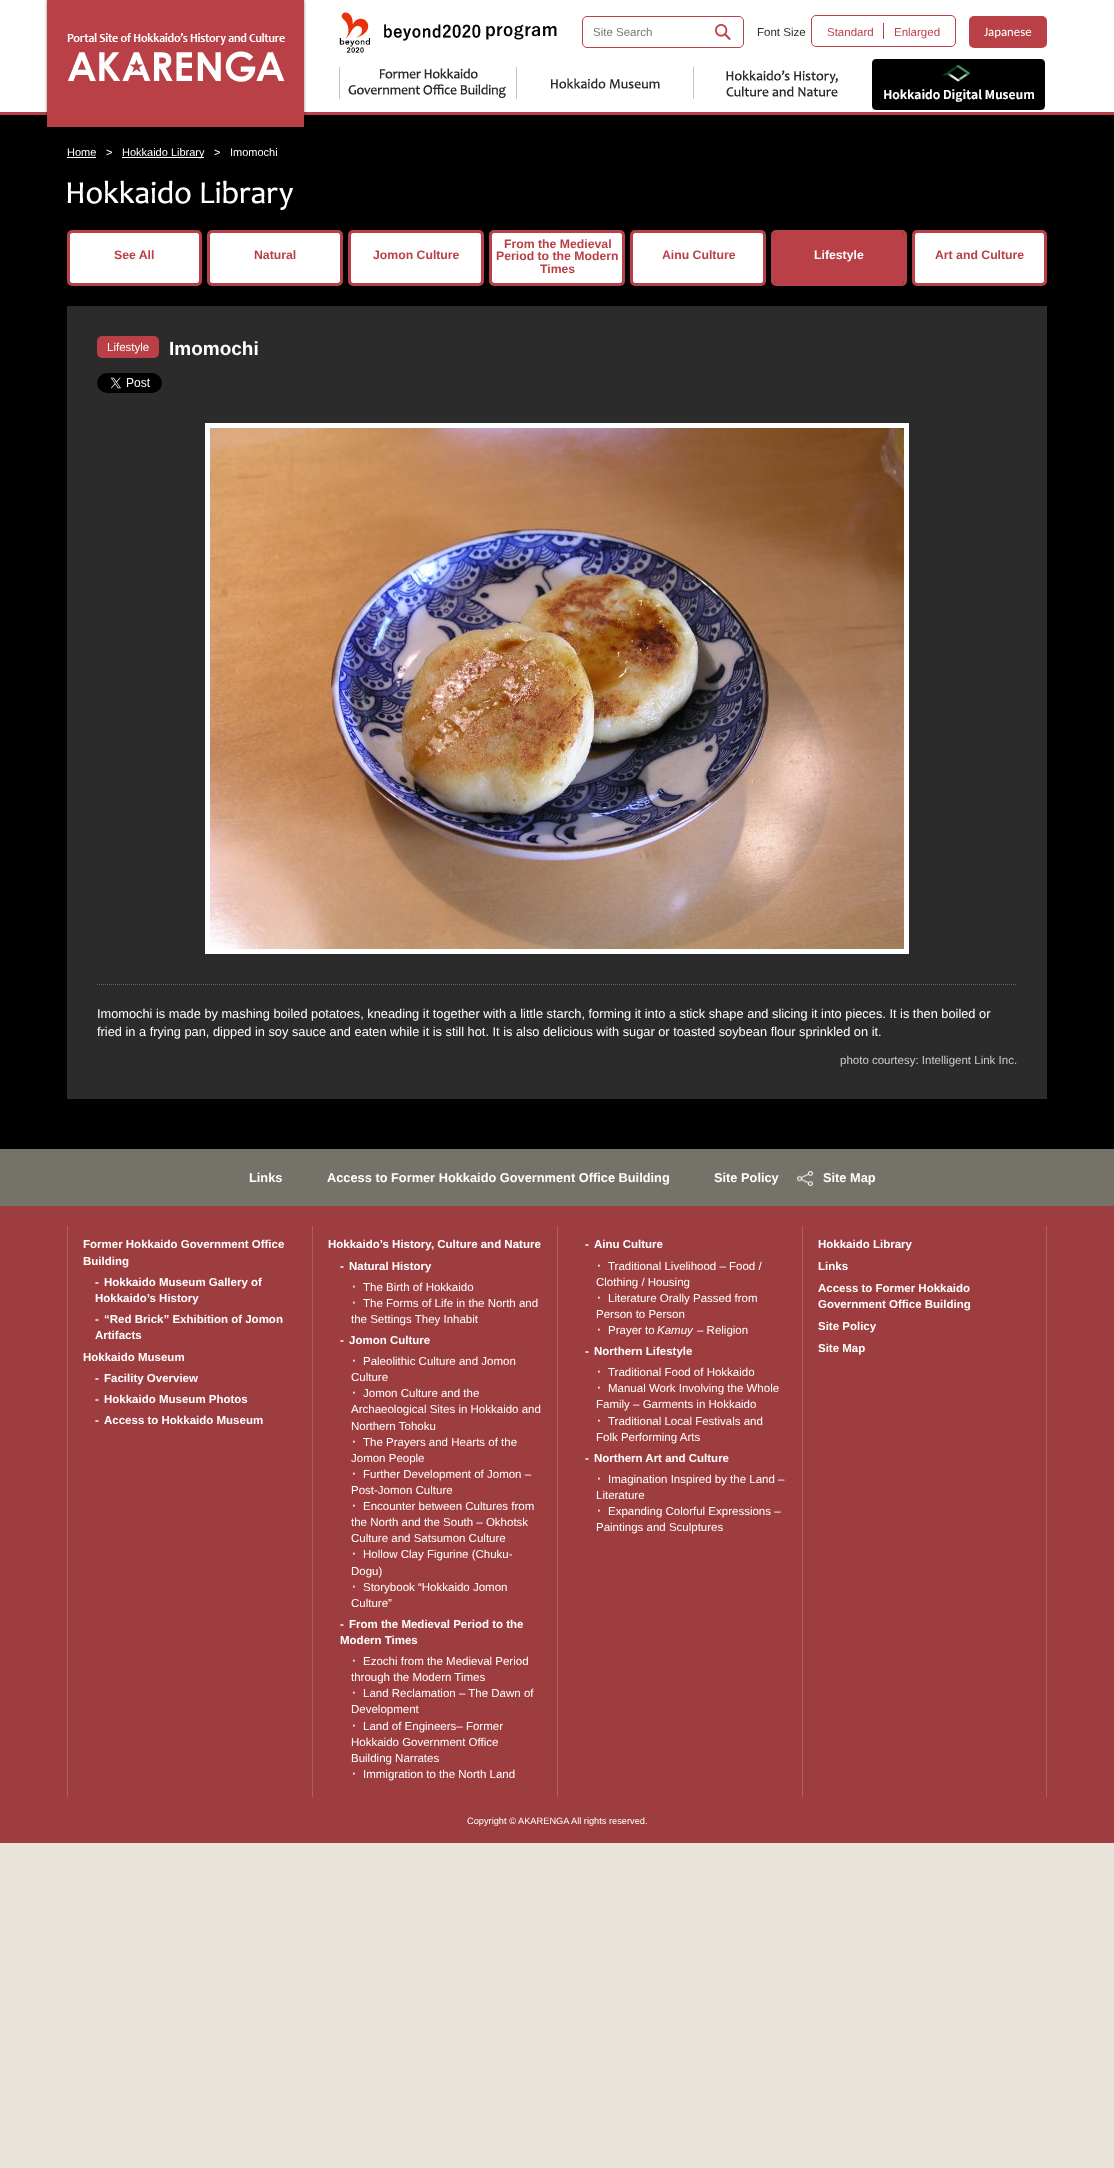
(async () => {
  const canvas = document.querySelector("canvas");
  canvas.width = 1114;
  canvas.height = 2168;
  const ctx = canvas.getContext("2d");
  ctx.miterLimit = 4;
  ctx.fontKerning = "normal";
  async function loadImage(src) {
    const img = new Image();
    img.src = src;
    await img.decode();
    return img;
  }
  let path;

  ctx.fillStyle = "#e9e4db";
  ctx.fillRect(0, 0, 1114, 2168);
  for (const [x, y, w, h, color] of [
    [0, 0, 1114, 112, "#ffffff"],
    [0, 112, 1114, 3, "#b94047"],
    [0, 115, 1114, 1034, "#000000"],
  ]) {
    ctx.fillStyle = color;
    ctx.fillRect(x, y, w, h);
  }
  ctx.fillStyle = "rgba(0, 0, 0, 0.5)";
  ctx.filter = "blur(1.5px)";
  ctx.beginPath();
  ctx.rect(47, 0, 257, 127);
  ctx.fill();
  ctx.filter = "none";
  ctx.fillStyle = "#b94047";
  ctx.fillRect(47, 0, 257, 127);
  ctx.drawImage(await loadImage("img/1.png"), 67, 33, 218, 49);
  ctx.drawImage(await loadImage("img/2.png"), 339, 12, 218, 41);
  ctx.beginPath();
  ctx.roundRect(582.5, 16.5, 161, 31, 4.5);
  ctx.strokeStyle = "#b94047";
  ctx.stroke();
  ctx.drawImage(await loadImage("img/3.png"), 715, 24, 16, 16);
  ctx.fillRect(883, 23, 1, 16);
  ctx.beginPath();
  ctx.roundRect(811.5, 15.5, 144, 31, 4.5);
  ctx.stroke();
  ctx.beginPath();
  ctx.roundRect(969, 16, 78, 32, 5);
  ctx.fill();
  ctx.drawImage(await loadImage("img/4.png"), 339, 67, 167, 32);
  ctx.drawImage(await loadImage("img/5.png"), 516, 67, 144, 32);
  ctx.drawImage(await loadImage("img/6.png"), 693, 67, 145, 32);
  ctx.drawImage(await loadImage("img/7.png"), 872, 59, 173, 51);
  ctx.fillStyle = "#ffffff";
  ctx.fillRect(67, 157, 29, 1);
  ctx.fillRect(122, 157, 82, 1);
  ctx.drawImage(await loadImage("img/8.png"), 67, 180, 226, 30);
  ctx.beginPath();
  ctx.roundRect(68.5, 231.5, 132, 53, 3.5);
  ctx.lineWidth = 3;
  ctx.stroke();
  ctx.beginPath();
  ctx.roundRect(70, 233, 129, 50, 2);
  ctx.fill();
  ctx.beginPath();
  ctx.roundRect(208.5, 231.5, 133, 53, 3.5);
  ctx.stroke();
  ctx.beginPath();
  ctx.roundRect(210, 233, 130, 50, 2);
  ctx.fill();
  ctx.beginPath();
  ctx.roundRect(349.5, 231.5, 133, 53, 3.5);
  ctx.stroke();
  ctx.beginPath();
  ctx.roundRect(351, 233, 130, 50, 2);
  ctx.fill();
  ctx.beginPath();
  ctx.roundRect(490.5, 231.5, 133, 53, 3.5);
  ctx.stroke();
  ctx.beginPath();
  ctx.roundRect(492, 233, 130, 50, 2);
  ctx.fill();
  ctx.beginPath();
  ctx.roundRect(631.5, 231.5, 133, 53, 3.5);
  ctx.stroke();
  ctx.beginPath();
  ctx.roundRect(633, 233, 130, 50, 2);
  ctx.fill();
  ctx.beginPath();
  ctx.roundRect(772.5, 231.5, 133, 53, 3.5);
  ctx.stroke();
  ctx.fillStyle = "#b94047";
  ctx.beginPath();
  ctx.roundRect(774, 233, 130, 50, 2);
  ctx.fill();
  ctx.beginPath();
  ctx.roundRect(913.5, 231.5, 132, 53, 3.5);
  ctx.stroke();
  ctx.fillStyle = "#ffffff";
  ctx.beginPath();
  ctx.roundRect(915, 233, 129, 50, 2);
  ctx.fill();
  ctx.fillStyle = "#2b2b2b";
  ctx.fillRect(67, 306, 980, 793);
  ctx.fillStyle = "#b94047";
  ctx.beginPath();
  ctx.roundRect(97, 336, 62, 22, 5);
  ctx.fill();
  ctx.drawImage(await loadImage("img/9.png"), 97, 373, 65, 20);
  path = new Path2D("M97 984.5H1017");
  ctx.strokeStyle = "#666666";
  ctx.lineWidth = 1;
  ctx.setLineDash([1, 1]);
  ctx.stroke(path);
  ctx.strokeStyle = "#ffffff";
  ctx.lineWidth = 5;
  ctx.setLineDash([]);
  ctx.strokeRect(207.5, 425.5, 699, 526);
  ctx.drawImage(await loadImage("img/10.png"), 210, 428, 694, 521);
  ctx.fillStyle = "#75726a";
  ctx.fillRect(0, 1149, 1114, 57);
  ctx.drawImage(await loadImage("img/11.png"), 797, 1171, 16, 15);
  for (const [x, y, w, h, color] of [
    [0, 1206, 1114, 637, "#9e3d3f"],
    [67, 1226, 1, 571, "#b45d5f"],
    [312, 1226, 1, 571, "#b45d5f"],
    [557, 1226, 1, 571, "#b45d5f"],
    [1046, 1226, 1, 571, "#b45d5f"],
    [802, 1226, 1, 571, "#b45d5f"],
  ]) {
    ctx.fillStyle = color;
    ctx.fillRect(x, y, w, h);
  }
  ctx.font = "11.5px Liberation Sans";
  ctx.fillStyle = "#757575";
  ctx.fillText("Site Search", 593, 36);
  ctx.fillStyle = "#2b2b2b";
  ctx.fillText("Font Size", 757, 36);
  ctx.fillStyle = "#b94047";
  ctx.fillText("Standard", 827, 36);
  ctx.fillText("Enlarged", 894, 36);
  ctx.font = "12.8px Carlito";
  ctx.fillStyle = "#ffffff";
  ctx.fillText("Japanese", 984, 36);
  ctx.font = "11px Liberation Sans";
  ctx.fillText("Home", 67, 156);
  ctx.letterSpacing = "10px";
  ctx.fillText(">", 106, 156);
  ctx.letterSpacing = "0px";
  ctx.fillText("Hokkaido Library", 122, 156);
  ctx.letterSpacing = "10px";
  ctx.fillText(">", 214, 156);
  ctx.letterSpacing = "0px";
  ctx.fillText("Imomochi", 230, 156);
  ctx.font = "bold 12.25px Liberation Sans";
  ctx.fillStyle = "#b94047";
  for (const [text, x, y] of [
    ["See All", 114, 259],
    ["Natural", 254, 259],
    ["Jomon Culture", 373, 259],
    ["From the Medieval", 504, 248],
    ["Period to the Modern", 496, 260],
    ["Times", 540, 273],
    ["Ainu Culture", 662, 259],
  ]) {
    ctx.fillText(text, x, y);
  }
  ctx.fillStyle = "#ffffff";
  ctx.fillText("Lifestyle", 814, 259);
  ctx.fillStyle = "#b94047";
  ctx.fillText("Art and Culture", 935, 259);
  ctx.font = "11.5px Liberation Sans";
  ctx.fillStyle = "#ffffff";
  ctx.fillText("Lifestyle", 107, 351);
  ctx.font = "bold 19px Liberation Sans";
  ctx.fillText("Imomochi", 169, 355);
  ctx.font = "12.8px Liberation Sans";
  ctx.fillText("Imomochi is made by mashing boiled potatoes, kneading it together with a little starch, forming it into a stick shape and slicing it into pieces. It is then boiled or", 97, 1018);
  ctx.fillText("fried in a frying pan, dipped in soy sauce and eaten while it is still hot. It is also delicious with sugar or toasted soybean flour sprinkled on it.", 97, 1036);
  ctx.font = "11.5px Liberation Sans";
  ctx.fillStyle = "#cccccc";
  ctx.fillText("photo courtesy: Intelligent Link Inc.", 840, 1064);
  ctx.font = "bold 12.8px Liberation Sans";
  ctx.fillStyle = "#ffffff";
  for (const [text, x, y] of [
    ["Links", 249, 1182],
    ["Access to Former Hokkaido Government Office Building", 327, 1182],
    ["Site Policy", 714, 1182],
    ["Site Map", 823, 1182],
  ]) {
    ctx.fillText(text, x, y);
  }
  ctx.font = "bold 11.5px Liberation Sans";
  ctx.fillText("Former Hokkaido Government Office", 83, 1248);
  ctx.fillText("Building", 83, 1265);
  ctx.letterSpacing = "6px";
  ctx.fillText("-", 95, 1286);
  ctx.letterSpacing = "0px";
  ctx.fillText("Hokkaido Museum Gallery of", 104, 1286);
  ctx.fillText("Hokkaido’s History", 95, 1302);
  ctx.letterSpacing = "6px";
  ctx.fillText("-", 95, 1323);
  ctx.letterSpacing = "0px";
  for (const [text, x, y] of [
    ["“Red Brick” Exhibition of Jomon", 104, 1323],
    ["Artifacts", 95, 1339],
    ["Hokkaido Museum", 83, 1361],
  ]) {
    ctx.fillText(text, x, y);
  }
  ctx.letterSpacing = "6px";
  ctx.fillText("-", 95, 1382);
  ctx.letterSpacing = "0px";
  ctx.fillText("Facility Overview", 104, 1382);
  ctx.letterSpacing = "6px";
  ctx.fillText("-", 95, 1403);
  ctx.letterSpacing = "0px";
  ctx.fillText("Hokkaido Museum Photos", 104, 1403);
  ctx.letterSpacing = "6px";
  ctx.fillText("-", 95, 1424);
  ctx.letterSpacing = "0px";
  ctx.fillText("Access to Hokkaido Museum", 104, 1424);
  ctx.fillText("Hokkaido’s History, Culture and Nature", 328, 1248);
  ctx.letterSpacing = "6px";
  ctx.fillText("-", 340, 1270);
  ctx.letterSpacing = "0px";
  ctx.fillText("Natural History", 349, 1270);
  ctx.letterSpacing = "6px";
  ctx.font = "11.5px IPAGothic";
  ctx.fillText("･", 351, 1291);
  ctx.letterSpacing = "0px";
  ctx.font = "11.5px Liberation Sans";
  ctx.fillText("The Birth of Hokkaido", 363, 1291);
  ctx.letterSpacing = "6px";
  ctx.font = "11.5px IPAGothic";
  ctx.fillText("･", 351, 1307);
  ctx.letterSpacing = "0px";
  ctx.font = "11.5px Liberation Sans";
  ctx.fillText("The Forms of Life in the North and", 363, 1307);
  ctx.fillText("the Settings They Inhabit", 351, 1323);
  ctx.letterSpacing = "6px";
  ctx.font = "bold 11.5px Liberation Sans";
  ctx.fillText("-", 340, 1344);
  ctx.letterSpacing = "0px";
  ctx.fillText("Jomon Culture", 349, 1344);
  ctx.letterSpacing = "6px";
  ctx.font = "11.5px IPAGothic";
  ctx.fillText("･", 351, 1365);
  ctx.letterSpacing = "0px";
  ctx.font = "11.5px Liberation Sans";
  ctx.fillText("Paleolithic Culture and Jomon", 363, 1365);
  ctx.fillText("Culture", 351, 1381);
  ctx.letterSpacing = "6px";
  ctx.font = "11.5px IPAGothic";
  ctx.fillText("･", 351, 1397);
  ctx.letterSpacing = "0px";
  ctx.font = "11.5px Liberation Sans";
  for (const [text, x, y] of [
    ["Jomon Culture and the", 363, 1397],
    ["Archaeological Sites in Hokkaido and", 351, 1413],
    ["Northern Tohoku", 351, 1430],
  ]) {
    ctx.fillText(text, x, y);
  }
  ctx.letterSpacing = "6px";
  ctx.font = "11.5px IPAGothic";
  ctx.fillText("･", 351, 1446);
  ctx.letterSpacing = "0px";
  ctx.font = "11.5px Liberation Sans";
  ctx.fillText("The Prayers and Hearts of the", 363, 1446);
  ctx.fillText("Jomon People", 351, 1462);
  ctx.letterSpacing = "6px";
  ctx.font = "11.5px IPAGothic";
  ctx.fillText("･", 351, 1478);
  ctx.letterSpacing = "0px";
  ctx.font = "11.5px Liberation Sans";
  ctx.fillText("Further Development of Jomon –", 363, 1478);
  ctx.fillText("Post-Jomon Culture", 351, 1494);
  ctx.letterSpacing = "6px";
  ctx.font = "11.5px IPAGothic";
  ctx.fillText("･", 351, 1510);
  ctx.letterSpacing = "0px";
  ctx.font = "11.5px Liberation Sans";
  for (const [text, x, y] of [
    ["Encounter between Cultures from", 363, 1510],
    ["the North and the South – Okhotsk", 351, 1526],
    ["Culture and Satsumon Culture", 351, 1542],
  ]) {
    ctx.fillText(text, x, y);
  }
  ctx.letterSpacing = "6px";
  ctx.font = "11.5px IPAGothic";
  ctx.fillText("･", 351, 1558);
  ctx.letterSpacing = "0px";
  ctx.font = "11.5px Liberation Sans";
  ctx.fillText("Hollow Clay Figurine (Chuku-", 363, 1558);
  ctx.fillText("Dogu)", 351, 1575);
  ctx.letterSpacing = "6px";
  ctx.font = "11.5px IPAGothic";
  ctx.fillText("･", 351, 1591);
  ctx.letterSpacing = "0px";
  ctx.font = "11.5px Liberation Sans";
  ctx.fillText("Storybook “Hokkaido Jomon", 363, 1591);
  ctx.fillText("Culture”", 351, 1607);
  ctx.letterSpacing = "6px";
  ctx.font = "bold 11.5px Liberation Sans";
  ctx.fillText("-", 340, 1628);
  ctx.letterSpacing = "0px";
  ctx.fillText("From the Medieval Period to the", 349, 1628);
  ctx.fillText("Modern Times", 340, 1644);
  ctx.letterSpacing = "6px";
  ctx.font = "11.5px IPAGothic";
  ctx.fillText("･", 351, 1665);
  ctx.letterSpacing = "0px";
  ctx.font = "11.5px Liberation Sans";
  ctx.fillText("Ezochi from the Medieval Period", 363, 1665);
  ctx.fillText("through the Modern Times", 351, 1681);
  ctx.letterSpacing = "6px";
  ctx.font = "11.5px IPAGothic";
  ctx.fillText("･", 351, 1697);
  ctx.letterSpacing = "0px";
  ctx.font = "11.5px Liberation Sans";
  ctx.fillText("Land Reclamation – The Dawn of", 363, 1697);
  ctx.fillText("Development", 351, 1713);
  ctx.letterSpacing = "6px";
  ctx.font = "11.5px IPAGothic";
  ctx.fillText("･", 351, 1730);
  ctx.letterSpacing = "0px";
  ctx.font = "11.5px Liberation Sans";
  for (const [text, x, y] of [
    ["Land of Engineers– Former", 363, 1730],
    ["Hokkaido Government Office", 351, 1746],
    ["Building Narrates", 351, 1762],
  ]) {
    ctx.fillText(text, x, y);
  }
  ctx.letterSpacing = "6px";
  ctx.font = "11.5px IPAGothic";
  ctx.fillText("･", 351, 1778);
  ctx.letterSpacing = "0px";
  ctx.font = "11.5px Liberation Sans";
  ctx.fillText("Immigration to the North Land", 363, 1778);
  ctx.letterSpacing = "6px";
  ctx.font = "bold 11.5px Liberation Sans";
  ctx.fillText("-", 585, 1248);
  ctx.letterSpacing = "0px";
  ctx.fillText("Ainu Culture", 594, 1248);
  ctx.letterSpacing = "6px";
  ctx.font = "11.5px IPAGothic";
  ctx.fillText("･", 596, 1270);
  ctx.letterSpacing = "0px";
  ctx.font = "11.5px Liberation Sans";
  ctx.fillText("Traditional Livelihood – Food /", 608, 1270);
  ctx.fillText("Clothing / Housing", 596, 1286);
  ctx.letterSpacing = "6px";
  ctx.font = "11.5px IPAGothic";
  ctx.fillText("･", 596, 1302);
  ctx.letterSpacing = "0px";
  ctx.font = "11.5px Liberation Sans";
  ctx.fillText("Literature Orally Passed from", 608, 1302);
  ctx.fillText("Person to Person", 596, 1318);
  ctx.letterSpacing = "6px";
  ctx.font = "11.5px IPAGothic";
  ctx.fillText("･", 596, 1334);
  ctx.letterSpacing = "0px";
  ctx.font = "11.5px Liberation Sans";
  ctx.fillText("Prayer to", 608, 1334);
  ctx.font = "italic 11.5px Liberation Sans";
  ctx.fillText("Kamuy", 657, 1334);
  ctx.font = "11.5px Liberation Sans";
  ctx.fillText("– Religion", 697, 1334);
  ctx.letterSpacing = "6px";
  ctx.font = "bold 11.5px Liberation Sans";
  ctx.fillText("-", 585, 1355);
  ctx.letterSpacing = "0px";
  ctx.fillText("Northern Lifestyle", 594, 1355);
  ctx.letterSpacing = "6px";
  ctx.font = "11.5px IPAGothic";
  ctx.fillText("･", 596, 1376);
  ctx.letterSpacing = "0px";
  ctx.font = "11.5px Liberation Sans";
  ctx.fillText("Traditional Food of Hokkaido", 608, 1376);
  ctx.letterSpacing = "6px";
  ctx.font = "11.5px IPAGothic";
  ctx.fillText("･", 596, 1392);
  ctx.letterSpacing = "0px";
  ctx.font = "11.5px Liberation Sans";
  ctx.fillText("Manual Work Involving the Whole", 608, 1392);
  ctx.fillText("Family – Garments in Hokkaido", 596, 1408);
  ctx.letterSpacing = "6px";
  ctx.font = "11.5px IPAGothic";
  ctx.fillText("･", 596, 1425);
  ctx.letterSpacing = "0px";
  ctx.font = "11.5px Liberation Sans";
  ctx.fillText("Traditional Local Festivals and", 608, 1425);
  ctx.fillText("Folk Performing Arts", 596, 1441);
  ctx.letterSpacing = "6px";
  ctx.font = "bold 11.5px Liberation Sans";
  ctx.fillText("-", 585, 1462);
  ctx.letterSpacing = "0px";
  ctx.fillText("Northern Art and Culture", 594, 1462);
  ctx.letterSpacing = "6px";
  ctx.font = "11.5px IPAGothic";
  ctx.fillText("･", 596, 1483);
  ctx.letterSpacing = "0px";
  ctx.font = "11.5px Liberation Sans";
  ctx.fillText("Imagination Inspired by the Land –", 608, 1483);
  ctx.fillText("Literature", 596, 1499);
  ctx.letterSpacing = "6px";
  ctx.font = "11.5px IPAGothic";
  ctx.fillText("･", 596, 1515);
  ctx.letterSpacing = "0px";
  ctx.font = "11.5px Liberation Sans";
  ctx.fillText("Expanding Colorful Expressions –", 608, 1515);
  ctx.fillText("Paintings and Sculptures", 596, 1531);
  ctx.font = "bold 11.5px Liberation Sans";
  for (const [text, x, y] of [
    ["Hokkaido Library", 818, 1248],
    ["Links", 818, 1270],
    ["Access to Former Hokkaido", 818, 1292],
    ["Government Office Building", 818, 1308],
    ["Site Policy", 818, 1330],
    ["Site Map", 818, 1352],
  ]) {
    ctx.fillText(text, x, y);
  }
  ctx.font = "9.25px Liberation Sans";
  ctx.fillText("Copyright © AKARENGA All rights reserved.", 467, 1824);
})();
